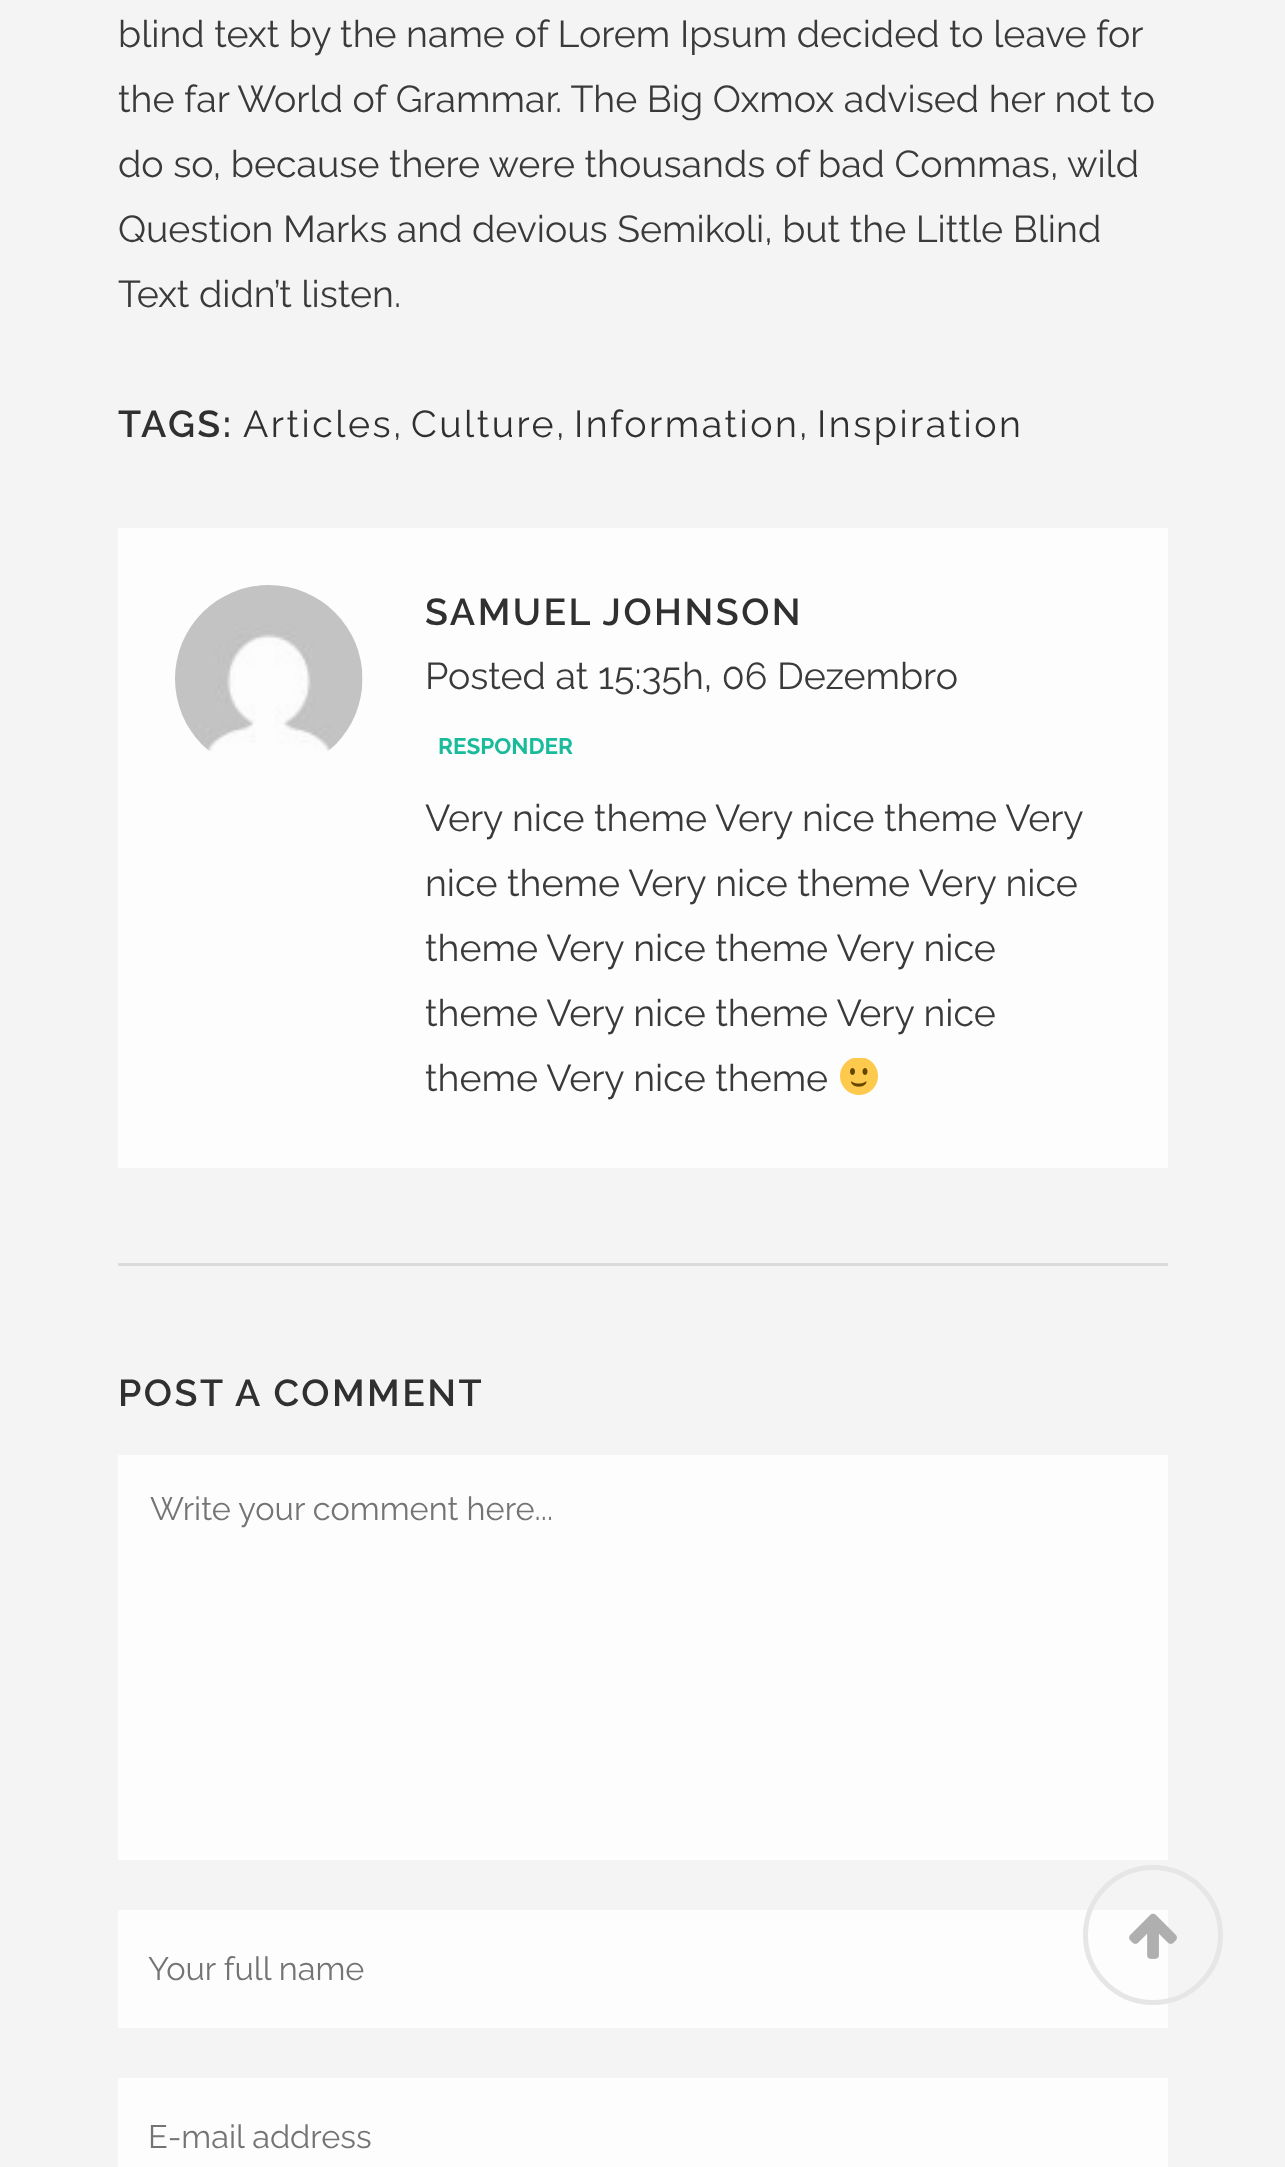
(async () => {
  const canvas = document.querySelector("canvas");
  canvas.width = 1285;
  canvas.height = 2167;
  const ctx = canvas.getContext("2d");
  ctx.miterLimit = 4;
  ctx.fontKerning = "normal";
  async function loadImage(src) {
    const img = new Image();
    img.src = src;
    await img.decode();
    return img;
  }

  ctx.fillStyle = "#f4f4f4";
  ctx.fillRect(0, 0, 1285, 2167);
  ctx.fillStyle = "#fdfdfd";
  ctx.fillRect(118, 528, 1050, 640);
  ctx.drawImage(await loadImage("img/1.png"), 175, 585, 188, 167);
  ctx.drawImage(await loadImage("img/2.png"), 840, 1058, 38, 37);
  for (const [x, y, w, h, color] of [
    [118, 1263, 1050, 3, "#dbdbdb"],
    [118, 1455, 1050, 405, "#fdfdfd"],
    [118, 1910, 1050, 118, "#fdfdfd"],
    [118, 2078, 1050, 89, "#fdfdfd"],
  ]) {
    ctx.fillStyle = color;
    ctx.fillRect(x, y, w, h);
  }
  ctx.beginPath();
  ctx.arc(1153, 1935, 67.5, 0, Math.PI * 2);
  ctx.strokeStyle = "#e6e6e6";
  ctx.lineWidth = 5;
  ctx.stroke();
  ctx.drawImage(await loadImage("img/3.png"), 1129, 1913, 48, 46);
  ctx.font = "37.5px Raleway";
  ctx.fillStyle = "#3a3a3a";
  for (const [text, x, y] of [
    ["blind text by the name of Lorem Ipsum decided to leave for", 118, 47],
    ["the far World of Grammar. The Big Oxmox advised her not to", 118, 112],
    ["do so, because there were thousands of bad Commas, wild", 118, 177],
    ["Question Marks and devious Semikoli, but the Little Blind", 118, 242],
    ["Text didn’t listen.", 118, 307],
  ]) {
    ctx.fillText(text, x, y);
  }
  ctx.letterSpacing = "2.5px";
  ctx.font = "600 37.5px Raleway";
  ctx.fillStyle = "#303030";
  ctx.fillText("TAGS:", 118, 437);
  ctx.font = "37.5px Raleway";
  ctx.fillText("Articles", 243, 437);
  ctx.letterSpacing = "0px";
  ctx.fillStyle = "#3a3a3a";
  ctx.fillText(",", 393, 437);
  ctx.letterSpacing = "2.5px";
  ctx.fillStyle = "#303030";
  ctx.fillText("Culture", 411, 437);
  ctx.letterSpacing = "0px";
  ctx.fillStyle = "#3a3a3a";
  ctx.fillText(",", 556, 437);
  ctx.letterSpacing = "2.5px";
  ctx.fillStyle = "#303030";
  ctx.fillText("Information", 574, 437);
  ctx.letterSpacing = "0px";
  ctx.fillStyle = "#3a3a3a";
  ctx.fillText(",", 799, 437);
  ctx.letterSpacing = "2.5px";
  ctx.fillStyle = "#303030";
  ctx.fillText("Inspiration", 817, 437);
  ctx.font = "600 37.5px Raleway";
  ctx.fillText("SAMUEL JOHNSON", 425, 625);
  ctx.letterSpacing = "0px";
  ctx.font = "37.5px Raleway";
  ctx.fillStyle = "#3a3a3a";
  ctx.fillText("Posted at 15:35h, 06 Dezembro", 425, 689);
  ctx.font = "bold 22.5px Raleway";
  ctx.fillStyle = "#1abb9b";
  ctx.fillText("RESPONDER", 438, 754);
  ctx.font = "37.5px Raleway";
  ctx.fillStyle = "#3a3a3a";
  for (const [text, x, y] of [
    ["Very nice theme", 425, 831],
    ["Very nice theme Very", 715, 831],
    ["nice theme Very nice theme Very nice", 425, 896],
    ["theme Very nice theme Very nice", 425, 961],
    ["theme Very nice theme Very nice", 425, 1026],
    ["theme Very nice theme", 425, 1091],
  ]) {
    ctx.fillText(text, x, y);
  }
  ctx.letterSpacing = "2.5px";
  ctx.font = "600 37.5px Raleway";
  ctx.fillStyle = "#303030";
  ctx.fillText("POST A COMMENT", 118, 1406);
  ctx.letterSpacing = "0px";
  ctx.font = "32.5px Raleway";
  ctx.fillStyle = "#747474";
  for (const [text, x, y] of [
    ["Write your comment here...", 150, 1520],
    ["Your full name", 148, 1980],
    ["E-mail address", 148, 2148],
  ]) {
    ctx.fillText(text, x, y);
  }
})();
